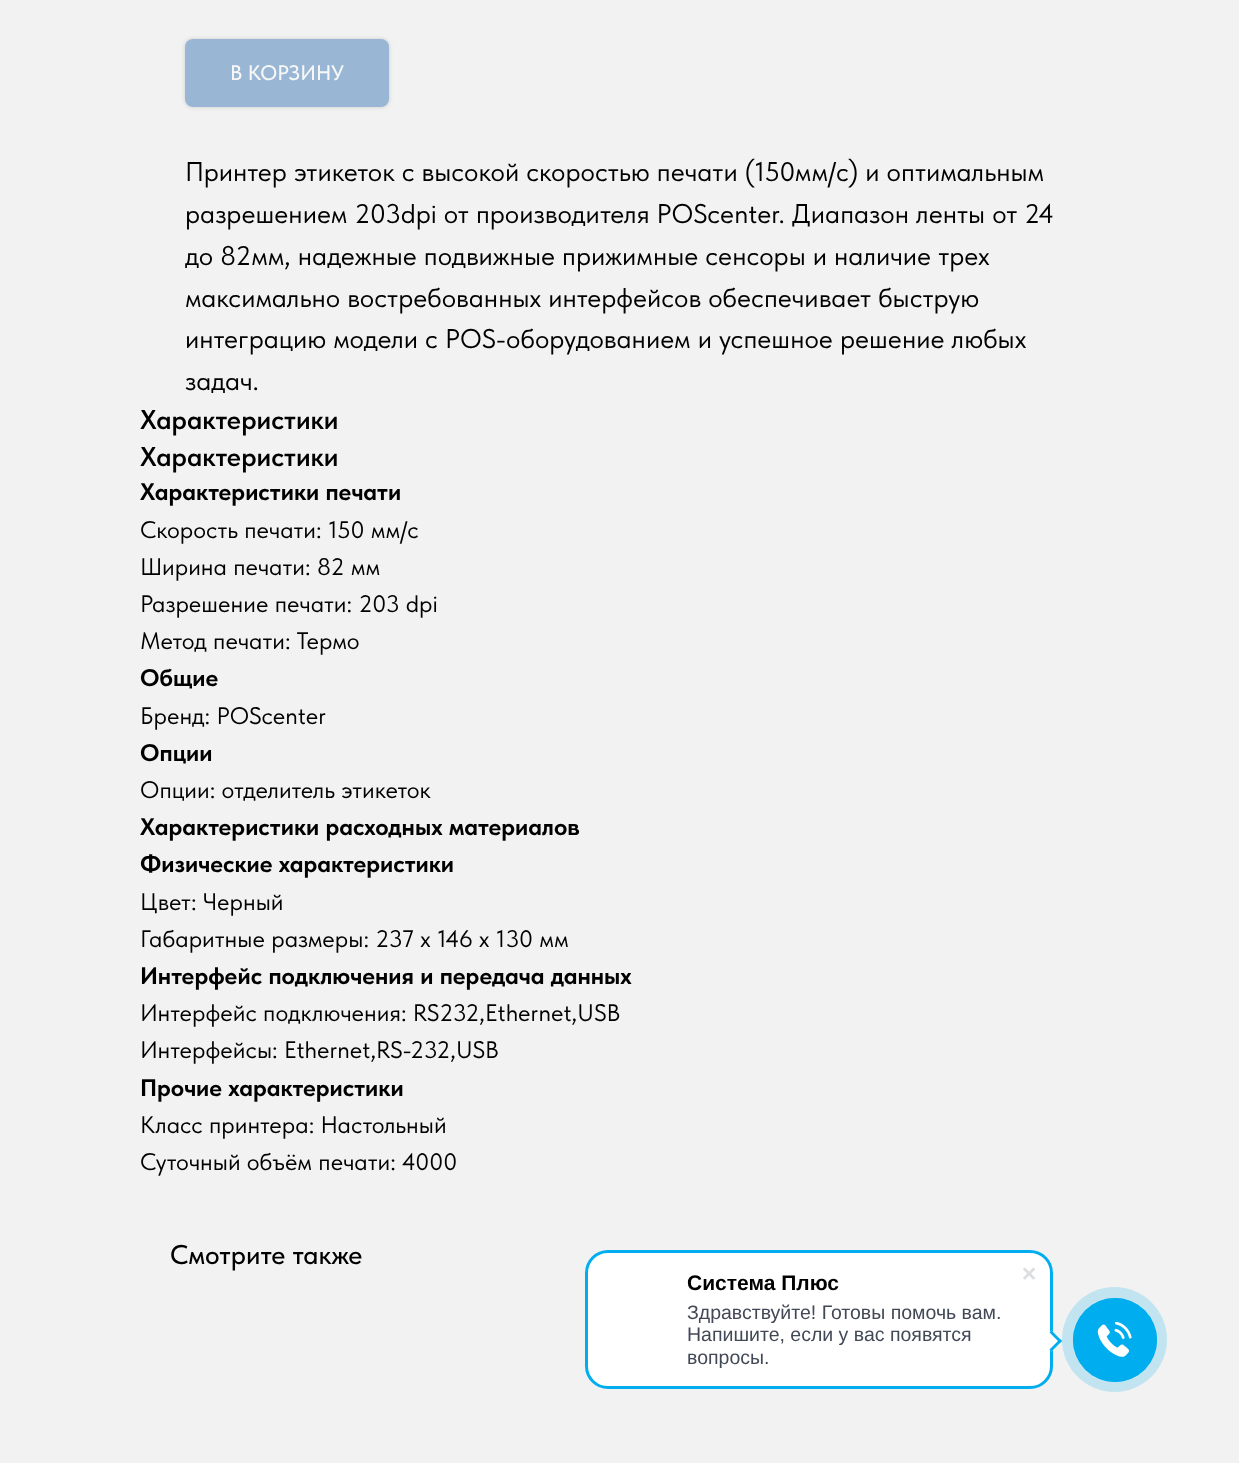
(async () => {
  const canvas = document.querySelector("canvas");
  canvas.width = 1239;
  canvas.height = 1463;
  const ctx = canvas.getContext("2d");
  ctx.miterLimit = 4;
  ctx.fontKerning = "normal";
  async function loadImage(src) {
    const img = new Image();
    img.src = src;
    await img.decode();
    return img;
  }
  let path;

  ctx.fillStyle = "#f2f2f2";
  ctx.fillRect(0, 0, 1239, 1463);
  ctx.fillStyle = "rgba(121, 121, 121, 0.3)";
  ctx.filter = "blur(2px)";
  ctx.beginPath();
  ctx.roundRect(185, 39, 204, 68, 8);
  ctx.fill();
  ctx.filter = "none";
  ctx.fillStyle = "#99b7d4";
  ctx.beginPath();
  ctx.roundRect(185, 39, 204, 68, 8);
  ctx.fill();
  ctx.fillStyle = "#ffffff";
  ctx.beginPath();
  ctx.roundRect(586.5, 1251.5, 465, 136, 21.5);
  ctx.fill();
  ctx.strokeStyle = "#00aeef";
  ctx.lineWidth = 3;
  ctx.stroke();
  ctx.drawImage(await loadImage("img/1.png"), 1023, 1267, 13, 13);
  path = new Path2D("M1041 1341L1051.5 1330.5L1062 1341L1051.5 1351.5Z");
  ctx.fill(path);
  ctx.fillStyle = "#00aeef";
  path = new Path2D("M1049.5 1332.5L1051.5 1330.5L1062 1341L1060 1343Z");
  ctx.fill(path);
  path = new Path2D("M1049.5 1349.5L1060 1339L1062 1341L1051.5 1351.5Z");
  ctx.fill(path);
  ctx.fillStyle = "#c2e4f1";
  ctx.beginPath();
  ctx.arc(1114.5, 1339.5, 52.5, 0, Math.PI * 2);
  ctx.fill();
  ctx.beginPath();
  ctx.arc(1115, 1340, 41.5, 0, Math.PI * 2);
  ctx.lineWidth = 1;
  ctx.stroke();
  ctx.fillStyle = "#00aeef";
  ctx.beginPath();
  ctx.arc(1115, 1340, 42, 0, Math.PI * 2);
  ctx.fill();
  ctx.drawImage(await loadImage("img/2.png"), 1097, 1322, 35, 35);
  ctx.font = "500 21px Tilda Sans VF";
  ctx.fillStyle = "#f7f7f7";
  ctx.fillText("В КОРЗИНУ", 230, 80);
  ctx.font = "27px Tilda Sans VF";
  ctx.fillStyle = "#000000";
  for (const [text, x, y] of [
    ["Принтер этикеток с высокой скоростью печати (150мм/с) и оптимальным", 185, 181],
    ["разрешением 203dpi от производителя POScenter. Диапазон ленты от 24", 185, 223],
    ["до 82мм, надежные подвижные прижимные сенсоры и наличие трех", 185, 265],
    ["максимально востребованных интерфейсов обеспечивает быструю", 185, 307],
    ["интеграцию модели с POS-оборудованием и успешное решение любых", 185, 348],
    ["задач.", 185, 390],
  ]) {
    ctx.fillText(text, x, y);
  }
  ctx.font = "600 27px Tilda Sans VF";
  ctx.fillText("Характеристики", 140, 429);
  ctx.fillText("Характеристики", 140, 466);
  ctx.font = "bold 24px Tilda Sans VF";
  ctx.fillText("Характеристики печати", 140, 500);
  ctx.font = "24px Tilda Sans VF";
  for (const [text, x, y] of [
    ["Скорость печати: 150 мм/с", 140, 538],
    ["Ширина печати: 82 мм", 140, 575],
    ["Разрешение печати: 203 dpi", 140, 612],
    ["Метод печати: Термо", 140, 649],
  ]) {
    ctx.fillText(text, x, y);
  }
  ctx.font = "bold 24px Tilda Sans VF";
  ctx.fillText("Общие", 140, 686);
  ctx.font = "24px Tilda Sans VF";
  ctx.fillText("Бренд: POScenter", 140, 724);
  ctx.font = "bold 24px Tilda Sans VF";
  ctx.fillText("Опции", 140, 761);
  ctx.font = "24px Tilda Sans VF";
  ctx.fillText("Опции: отделитель этикеток", 140, 798);
  ctx.font = "bold 24px Tilda Sans VF";
  ctx.fillText("Характеристики расходных материалов", 140, 835);
  ctx.fillText("Физические характеристики", 140, 872);
  ctx.font = "24px Tilda Sans VF";
  ctx.fillText("Цвет: Черный", 140, 910);
  ctx.fillText("Габаритные размеры: 237 x 146 x 130 мм", 140, 947);
  ctx.font = "bold 24px Tilda Sans VF";
  ctx.fillText("Интерфейс подключения и передача данных", 140, 984);
  ctx.font = "24px Tilda Sans VF";
  ctx.fillText("Интерфейс подключения: RS232,Ethernet,USB", 140, 1021);
  ctx.fillText("Интерфейсы: Ethernet,RS-232,USB", 140, 1058);
  ctx.font = "bold 24px Tilda Sans VF";
  ctx.fillText("Прочие характеристики", 140, 1096);
  ctx.font = "24px Tilda Sans VF";
  ctx.fillText("Класс принтера: Настольный", 140, 1133);
  ctx.fillText("Суточный объём печати: 4000", 140, 1170);
  ctx.font = "500 27px Tilda Sans VF";
  ctx.fillText("Смотрите также", 170, 1264);
  ctx.font = "bold 21px Liberation Sans";
  ctx.fillText("Система Плюс", 687, 1290);
  ctx.font = "19.5px Liberation Sans";
  ctx.fillStyle = "#424956";
  for (const [text, x, y] of [
    ["Здравствуйте! Готовы помочь вам.", 687, 1319],
    ["Напишите, если у вас появятся", 687, 1341],
    ["вопросы.", 687, 1364],
  ]) {
    ctx.fillText(text, x, y);
  }
})();
